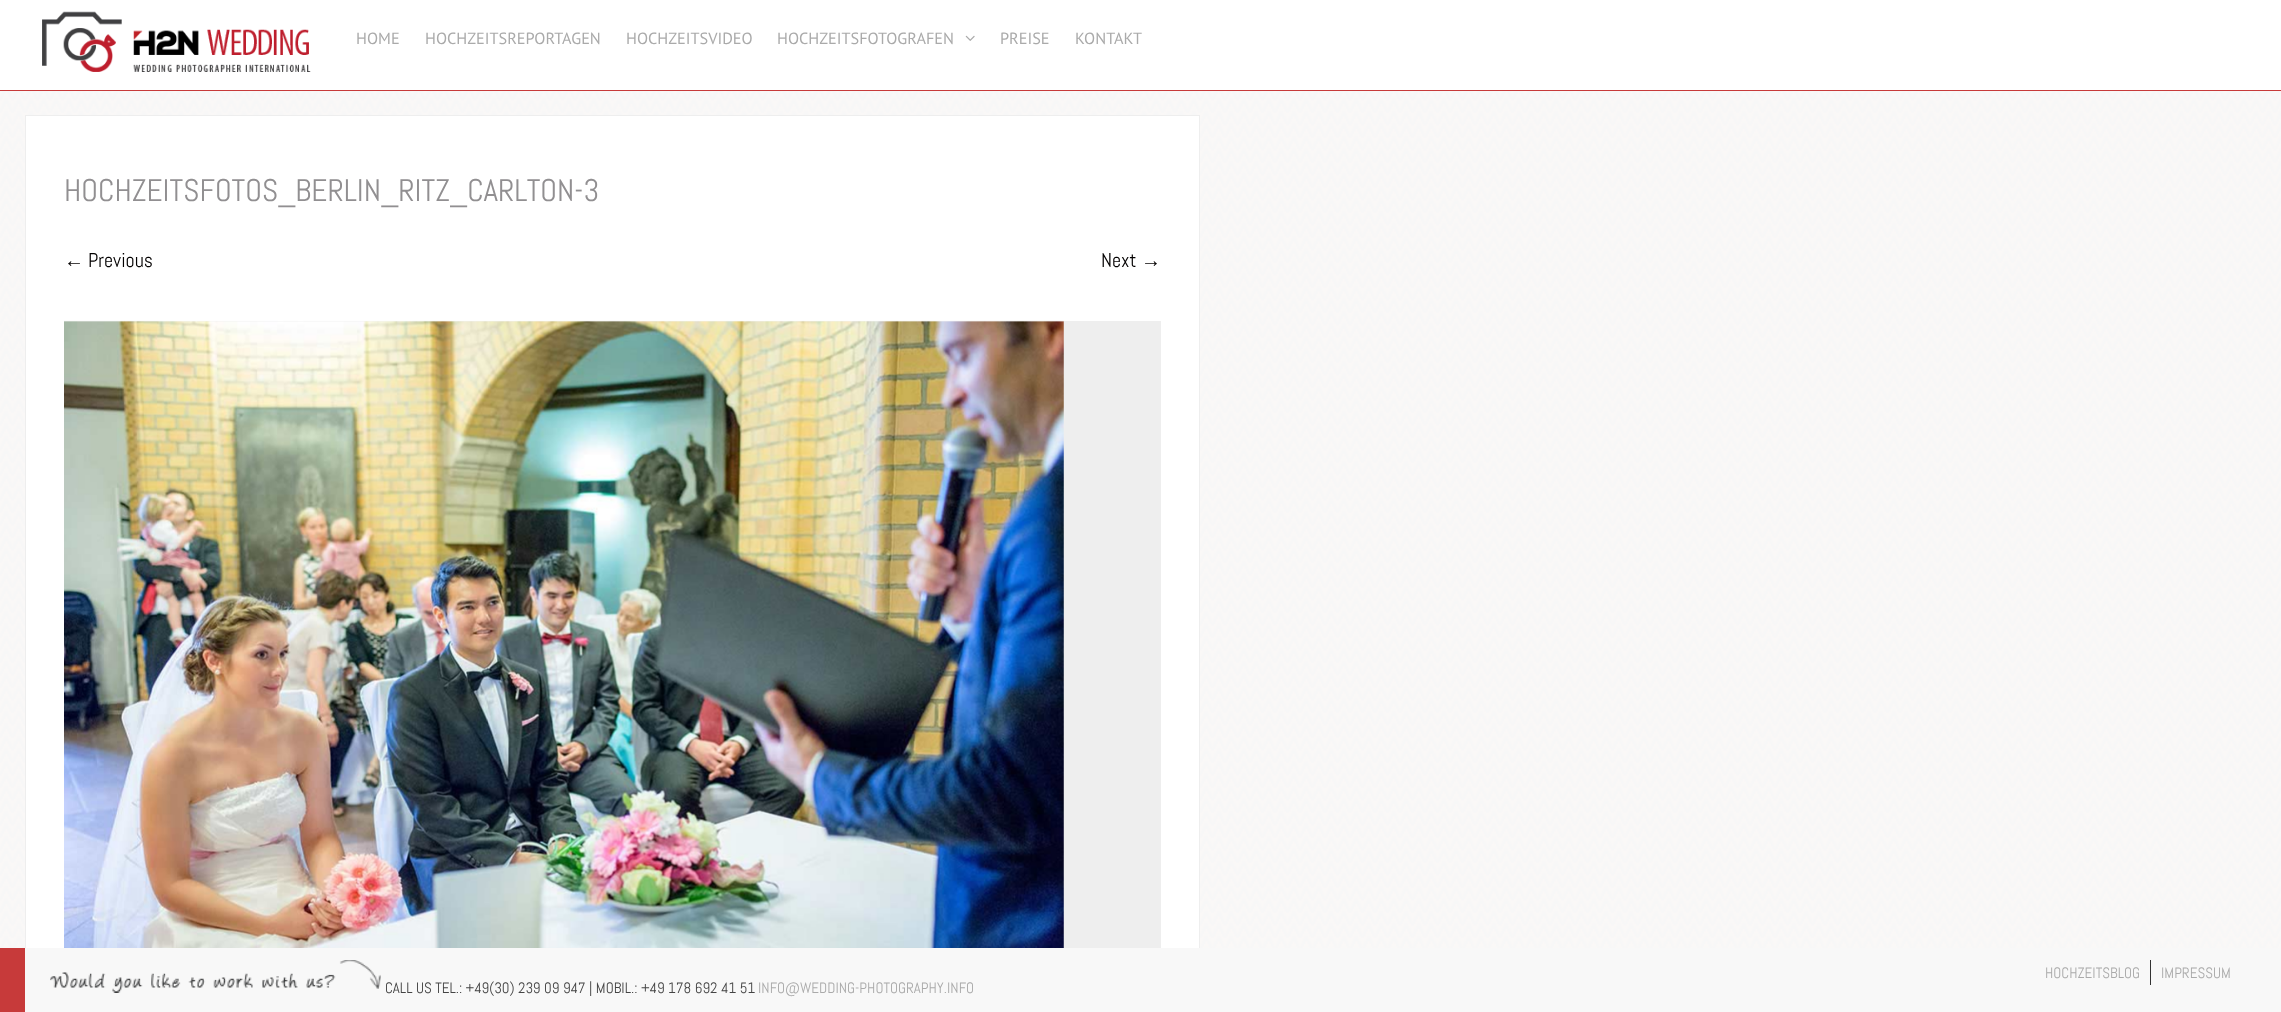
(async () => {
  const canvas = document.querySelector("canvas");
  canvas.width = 2281;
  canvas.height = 1012;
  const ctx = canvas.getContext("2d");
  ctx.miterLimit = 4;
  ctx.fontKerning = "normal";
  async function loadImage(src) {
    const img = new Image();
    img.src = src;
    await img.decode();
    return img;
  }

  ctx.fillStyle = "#ffffff";
  ctx.fillRect(0, 0, 2281, 1012);
  ctx.drawImage(await loadImage("img/1.png"), 0, 0, 2281, 948);
  ctx.fillStyle = "rgba(255, 255, 255, 0.9)";
  ctx.fillRect(0, 0, 2281, 90);
  ctx.fillStyle = "#c73a3a";
  ctx.fillRect(0, 90, 2281, 1);
  ctx.drawImage(await loadImage("img/2.png"), 42, 11, 269, 61);
  ctx.drawImage(await loadImage("img/3.png"), 965, 35, 10, 6);
  ctx.fillStyle = "rgba(255, 255, 255, 0.9)";
  ctx.fillRect(26, 116, 1173, 832);
  ctx.strokeStyle = "#eeeeee";
  ctx.strokeRect(25.5, 115.5, 1174, 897);
  ctx.fillStyle = "#eeeeee";
  ctx.fillRect(64, 321, 1097, 627);
  ctx.drawImage(await loadImage("img/4.png"), 64, 320, 1000, 628);
  for (const [x, y, w, h, color] of [
    [25, 948, 2256, 64, "#f8f8f8"],
    [0, 948, 25, 64, "#c73a3a"],
    [2150, 960, 1, 25, "#333333"],
  ]) {
    ctx.fillStyle = color;
    ctx.fillRect(x, y, w, h);
  }
  ctx.drawImage(await loadImage("img/5.png"), 50, 960, 331, 33);
  ctx.font = "16.25px PT Sans";
  ctx.fillStyle = "#aaaaaa";
  for (const [text, x, y] of [
    ["HOME", 356, 44],
    ["HOCHZEITSREPORTAGEN", 425, 44],
    ["HOCHZEITSVIDEO", 626, 44],
    ["HOCHZEITSFOTOGRAFEN", 777, 44],
    ["PREISE", 1000, 44],
    ["KONTAKT", 1075, 44],
  ]) {
    ctx.fillText(text, x, y);
  }
  ctx.font = "31.25px Abel";
  ctx.fillStyle = "#918f91";
  ctx.fillText("HOCHZEITSFOTOS_BERLIN_RITZ_CARLTON-3", 64, 201);
  ctx.font = "20px Liberation Serif";
  ctx.fillStyle = "#030101";
  ctx.fillText("←", 64, 267);
  ctx.font = "20px Abel";
  ctx.fillText("Previous", 88, 267);
  ctx.fillText("Next", 1101, 267);
  ctx.font = "20px Liberation Serif";
  ctx.fillText("→", 1141, 267);
  ctx.font = "15px Abel";
  ctx.fillStyle = "#aaaaaa";
  ctx.fillText("HOCHZEITSBLOG", 2045, 978);
  ctx.fillText("IMPRESSUM", 2161, 978);
  ctx.fillStyle = "#444444";
  ctx.fillText("CALL US TEL.: +49(30) 239 09 947 | MOBIL.: +49 178 692 41 51", 385, 993);
  ctx.fillStyle = "#aaaaaa";
  ctx.fillText("INFO@WEDDING-PHOTOGRAPHY.INFO", 758, 993);
})();
